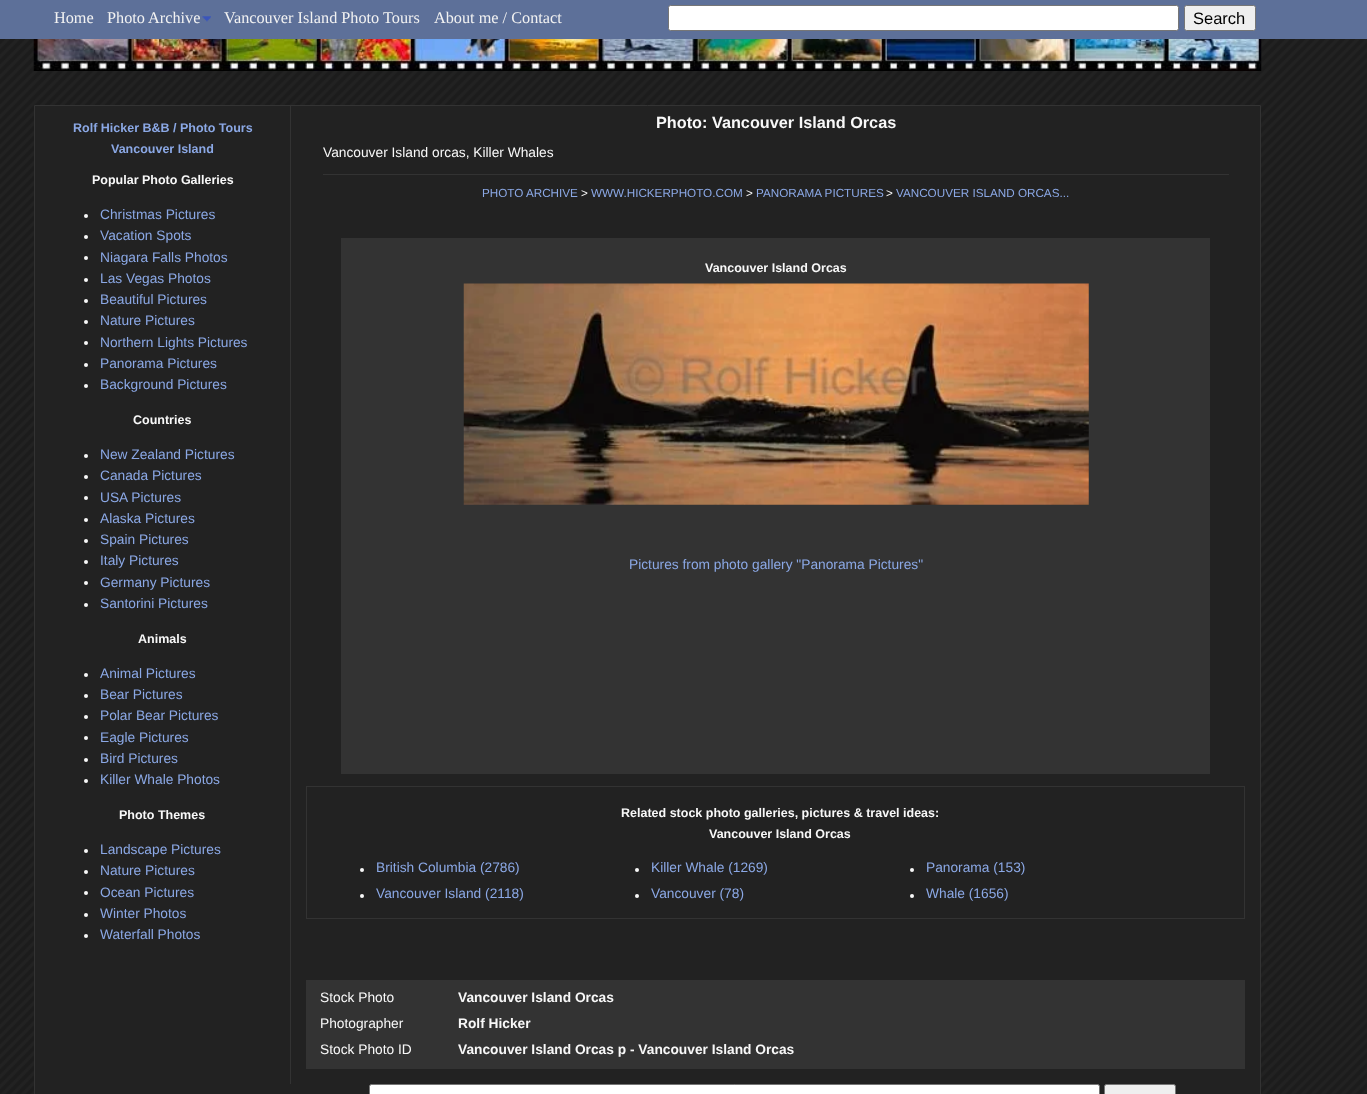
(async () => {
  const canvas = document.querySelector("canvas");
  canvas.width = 1367;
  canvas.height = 1094;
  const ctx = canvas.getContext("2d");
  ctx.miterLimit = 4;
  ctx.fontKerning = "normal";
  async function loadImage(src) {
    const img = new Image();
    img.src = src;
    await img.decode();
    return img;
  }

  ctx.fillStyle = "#ffffff";
  ctx.fillRect(0, 0, 1367, 1094);
  ctx.drawImage(await loadImage("img/1.png"), 0, 39, 1367, 1055);
  ctx.fillStyle = "#5d7099";
  ctx.fillRect(0, 0, 1367, 39);
  ctx.drawImage(await loadImage("img/2.png"), 202, 16, 9, 6);
  ctx.fillStyle = "#ffffff";
  ctx.beginPath();
  ctx.roundRect(668.5, 5.5, 510, 25, 2);
  ctx.fill();
  ctx.strokeStyle = "#767676";
  ctx.stroke();
  ctx.fillStyle = "#efefef";
  ctx.beginPath();
  ctx.roundRect(1184.5, 5.5, 71, 25, 2);
  ctx.fill();
  ctx.stroke();
  ctx.drawImage(await loadImage("img/3.png"), 33, 39, 1229, 32);
  ctx.fillStyle = "#222222";
  ctx.beginPath();
  ctx.rect(34.5, 105.5, 1226, 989);
  ctx.fill();
  ctx.strokeStyle = "#333333";
  ctx.stroke();
  ctx.fillStyle = "#f8f8f8";
  ctx.beginPath();
  ctx.arc(86, 216, 2, 0, Math.PI * 2);
  ctx.fill();
  ctx.beginPath();
  ctx.arc(86, 237, 2, 0, Math.PI * 2);
  ctx.fill();
  ctx.beginPath();
  ctx.arc(86, 258, 2, 0, Math.PI * 2);
  ctx.fill();
  ctx.beginPath();
  ctx.arc(86, 280, 2, 0, Math.PI * 2);
  ctx.fill();
  ctx.beginPath();
  ctx.arc(86, 301, 2, 0, Math.PI * 2);
  ctx.fill();
  ctx.beginPath();
  ctx.arc(86, 322, 2, 0, Math.PI * 2);
  ctx.fill();
  ctx.beginPath();
  ctx.arc(86, 343, 2, 0, Math.PI * 2);
  ctx.fill();
  ctx.beginPath();
  ctx.arc(86, 365, 2, 0, Math.PI * 2);
  ctx.fill();
  ctx.beginPath();
  ctx.arc(86, 386, 2, 0, Math.PI * 2);
  ctx.fill();
  ctx.beginPath();
  ctx.arc(86, 456, 2, 0, Math.PI * 2);
  ctx.fill();
  ctx.beginPath();
  ctx.arc(86, 477, 2, 0, Math.PI * 2);
  ctx.fill();
  ctx.beginPath();
  ctx.arc(86, 498, 2, 0, Math.PI * 2);
  ctx.fill();
  ctx.beginPath();
  ctx.arc(86, 520, 2, 0, Math.PI * 2);
  ctx.fill();
  ctx.beginPath();
  ctx.arc(86, 541, 2, 0, Math.PI * 2);
  ctx.fill();
  ctx.beginPath();
  ctx.arc(86, 562, 2, 0, Math.PI * 2);
  ctx.fill();
  ctx.beginPath();
  ctx.arc(86, 583, 2, 0, Math.PI * 2);
  ctx.fill();
  ctx.beginPath();
  ctx.arc(86, 605, 2, 0, Math.PI * 2);
  ctx.fill();
  ctx.beginPath();
  ctx.arc(86, 675, 2, 0, Math.PI * 2);
  ctx.fill();
  ctx.beginPath();
  ctx.arc(86, 696, 2, 0, Math.PI * 2);
  ctx.fill();
  ctx.beginPath();
  ctx.arc(86, 717, 2, 0, Math.PI * 2);
  ctx.fill();
  ctx.beginPath();
  ctx.arc(86, 738, 2, 0, Math.PI * 2);
  ctx.fill();
  ctx.beginPath();
  ctx.arc(86, 760, 2, 0, Math.PI * 2);
  ctx.fill();
  ctx.beginPath();
  ctx.arc(86, 781, 2, 0, Math.PI * 2);
  ctx.fill();
  ctx.beginPath();
  ctx.arc(86, 851, 2, 0, Math.PI * 2);
  ctx.fill();
  ctx.beginPath();
  ctx.arc(86, 872, 2, 0, Math.PI * 2);
  ctx.fill();
  ctx.beginPath();
  ctx.arc(86, 893, 2, 0, Math.PI * 2);
  ctx.fill();
  ctx.beginPath();
  ctx.arc(86, 915, 2, 0, Math.PI * 2);
  ctx.fill();
  ctx.beginPath();
  ctx.arc(86, 936, 2, 0, Math.PI * 2);
  ctx.fill();
  for (const [x, y, w, h, color] of [
    [290, 106, 1, 978, "#333333"],
    [323, 174, 906, 1, "#333333"],
    [341, 238, 869, 536, "#333333"],
  ]) {
    ctx.fillStyle = color;
    ctx.fillRect(x, y, w, h);
  }
  ctx.drawImage(await loadImage("img/4.png"), 463, 283, 626, 222);
  ctx.strokeRect(306.5, 786.5, 938, 132);
  ctx.fillStyle = "#f8f8f8";
  ctx.beginPath();
  ctx.arc(362, 870, 2, 0, Math.PI * 2);
  ctx.fill();
  ctx.beginPath();
  ctx.arc(637, 870, 2, 0, Math.PI * 2);
  ctx.fill();
  ctx.beginPath();
  ctx.arc(912, 870, 2, 0, Math.PI * 2);
  ctx.fill();
  ctx.beginPath();
  ctx.arc(362, 896, 2, 0, Math.PI * 2);
  ctx.fill();
  ctx.beginPath();
  ctx.arc(637, 896, 2, 0, Math.PI * 2);
  ctx.fill();
  ctx.beginPath();
  ctx.arc(912, 896, 2, 0, Math.PI * 2);
  ctx.fill();
  ctx.fillStyle = "#333333";
  ctx.fillRect(306, 980, 939, 89);
  ctx.fillStyle = "#ffffff";
  ctx.beginPath();
  ctx.roundRect(369.5, 1084.5, 730, 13, 2);
  ctx.fill();
  ctx.strokeStyle = "#767676";
  ctx.stroke();
  ctx.fillStyle = "#efefef";
  ctx.beginPath();
  ctx.roundRect(1104.5, 1084.5, 71, 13, 2);
  ctx.fill();
  ctx.stroke();
  ctx.font = "16.25px Liberation Serif";
  ctx.fillStyle = "#f2f2f2";
  for (const [text, x, y] of [
    ["Home", 54, 23],
    ["Photo Archive", 107, 23],
    ["Vancouver Island Photo Tours", 224, 23],
    ["About me / Contact", 434, 23],
  ]) {
    ctx.fillText(text, x, y);
  }
  ctx.font = "16.5px Liberation Sans";
  ctx.fillStyle = "#000000";
  ctx.fillText("Search", 1193, 24);
  ctx.font = "bold 12.5px Liberation Sans";
  ctx.fillStyle = "#8ba8e5";
  ctx.fillText("Rolf Hicker B&B / Photo Tours", 73, 132);
  ctx.fillText("Vancouver Island", 111, 153);
  ctx.fillStyle = "#f8f8f8";
  ctx.fillText("Popular Photo Galleries", 92, 184);
  ctx.font = "13.75px Liberation Sans";
  ctx.fillStyle = "#8ba8e5";
  for (const [text, x, y] of [
    ["Christmas Pictures", 100, 219],
    ["Vacation Spots", 100, 240],
    ["Niagara Falls Photos", 100, 262],
    ["Las Vegas Photos", 100, 283],
    ["Beautiful Pictures", 100, 304],
    ["Nature Pictures", 100, 325],
    ["Northern Lights Pictures", 100, 347],
    ["Panorama Pictures", 100, 368],
    ["Background Pictures", 100, 389],
  ]) {
    ctx.fillText(text, x, y);
  }
  ctx.font = "bold 12.5px Liberation Sans";
  ctx.fillStyle = "#f8f8f8";
  ctx.fillText("Countries", 133, 424);
  ctx.font = "13.75px Liberation Sans";
  ctx.fillStyle = "#8ba8e5";
  for (const [text, x, y] of [
    ["New Zealand Pictures", 100, 459],
    ["Canada Pictures", 100, 480],
    ["USA Pictures", 100, 502],
    ["Alaska Pictures", 100, 523],
    ["Spain Pictures", 100, 544],
    ["Italy Pictures", 100, 565],
    ["Germany Pictures", 100, 587],
    ["Santorini Pictures", 100, 608],
  ]) {
    ctx.fillText(text, x, y);
  }
  ctx.font = "bold 12.5px Liberation Sans";
  ctx.fillStyle = "#f8f8f8";
  ctx.fillText("Animals", 138, 643);
  ctx.font = "13.75px Liberation Sans";
  ctx.fillStyle = "#8ba8e5";
  for (const [text, x, y] of [
    ["Animal Pictures", 100, 678],
    ["Bear Pictures", 100, 699],
    ["Polar Bear Pictures", 100, 720],
    ["Eagle Pictures", 100, 742],
    ["Bird Pictures", 100, 763],
    ["Killer Whale Photos", 100, 784],
  ]) {
    ctx.fillText(text, x, y);
  }
  ctx.font = "bold 12.5px Liberation Sans";
  ctx.fillStyle = "#f8f8f8";
  ctx.fillText("Photo Themes", 119, 819);
  ctx.font = "13.75px Liberation Sans";
  ctx.fillStyle = "#8ba8e5";
  for (const [text, x, y] of [
    ["Landscape Pictures", 100, 854],
    ["Nature Pictures", 100, 875],
    ["Ocean Pictures", 100, 897],
    ["Winter Photos", 100, 918],
    ["Waterfall Photos", 100, 939],
  ]) {
    ctx.fillText(text, x, y);
  }
  ctx.font = "bold 16.25px Liberation Sans";
  ctx.fillStyle = "#f8f8f8";
  ctx.fillText("Photo: Vancouver Island Orcas", 656, 128);
  ctx.font = "13.75px Liberation Sans";
  ctx.fillText("Vancouver Island orcas, Killer Whales", 323, 157);
  ctx.font = "11.7px Liberation Sans";
  ctx.fillStyle = "#8ba8e5";
  ctx.fillText("PHOTO ARCHIVE", 482, 197);
  ctx.fillStyle = "#f8f8f8";
  ctx.fillText(">", 581, 197);
  ctx.fillStyle = "#8ba8e5";
  ctx.fillText("WWW.HICKERPHOTO.COM", 591, 197);
  ctx.fillStyle = "#f8f8f8";
  ctx.fillText(">", 746, 197);
  ctx.fillStyle = "#8ba8e5";
  ctx.fillText("PANORAMA PICTURES", 756, 197);
  ctx.fillStyle = "#f8f8f8";
  ctx.fillText(">", 886, 197);
  ctx.fillStyle = "#8ba8e5";
  ctx.fillText("VANCOUVER ISLAND ORCAS...", 896, 197);
  ctx.font = "bold 12.5px Liberation Sans";
  ctx.fillStyle = "#f8f8f8";
  ctx.fillText("Vancouver Island Orcas", 705, 272);
  ctx.font = "13.75px Liberation Sans";
  ctx.fillStyle = "#8ba8e5";
  ctx.fillText("Pictures from photo gallery \"Panorama Pictures\"", 629, 569);
  ctx.font = "bold 12.5px Liberation Sans";
  ctx.fillStyle = "#f8f8f8";
  ctx.fillText("Related stock photo galleries, pictures & travel ideas:", 621, 817);
  ctx.fillText("Vancouver Island Orcas", 709, 838);
  ctx.font = "13.75px Liberation Sans";
  ctx.fillStyle = "#8ba8e5";
  for (const [text, x, y] of [
    ["British Columbia (2786)", 376, 872],
    ["Killer Whale (1269)", 651, 872],
    ["Panorama (153)", 926, 872],
    ["Vancouver Island (2118)", 376, 898],
    ["Vancouver (78)", 651, 898],
    ["Whale (1656)", 926, 898],
  ]) {
    ctx.fillText(text, x, y);
  }
  ctx.fillStyle = "#f8f8f8";
  ctx.fillText("Stock Photo", 320, 1002);
  ctx.font = "bold 13.75px Liberation Sans";
  ctx.fillText("Vancouver Island Orcas", 458, 1002);
  ctx.font = "13.75px Liberation Sans";
  ctx.fillText("Photographer", 320, 1028);
  ctx.font = "bold 13.75px Liberation Sans";
  ctx.fillText("Rolf Hicker", 458, 1028);
  ctx.font = "13.75px Liberation Sans";
  ctx.fillText("Stock Photo ID", 320, 1054);
  ctx.font = "bold 13.75px Liberation Sans";
  ctx.fillText("Vancouver Island Orcas p - Vancouver Island Orcas", 458, 1054);
})();
